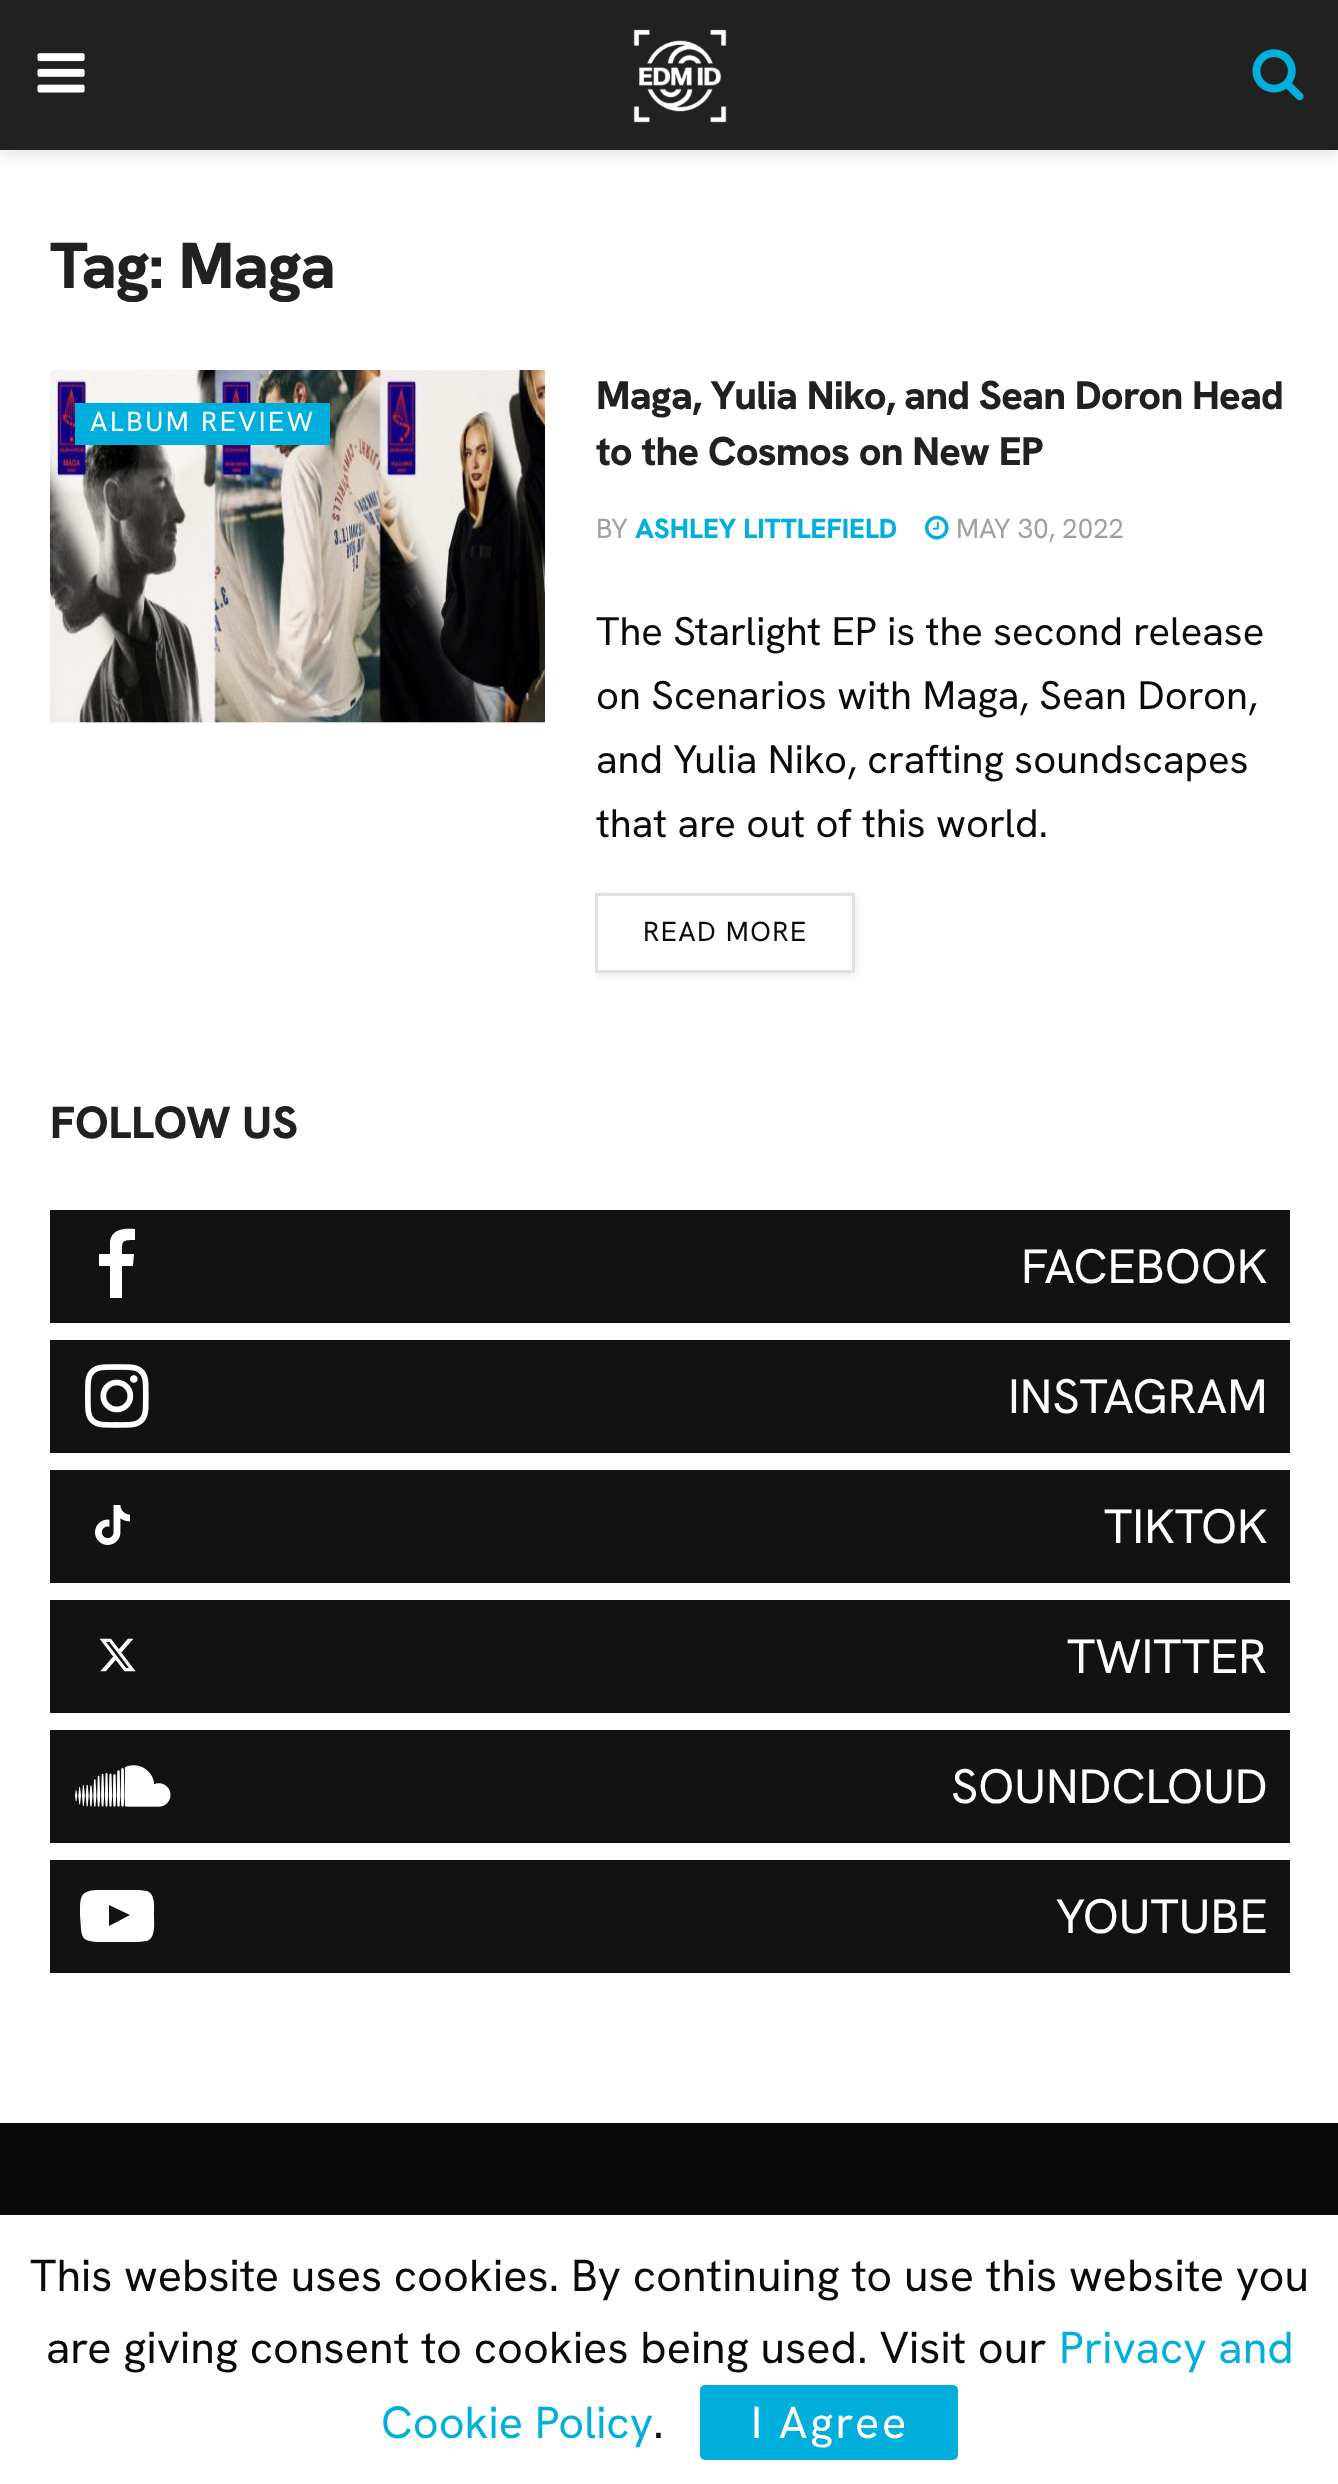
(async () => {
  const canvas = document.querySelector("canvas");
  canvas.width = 1338;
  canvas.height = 2484;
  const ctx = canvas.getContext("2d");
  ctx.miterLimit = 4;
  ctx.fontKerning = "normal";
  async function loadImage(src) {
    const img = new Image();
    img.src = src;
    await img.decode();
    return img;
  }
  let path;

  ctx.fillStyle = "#ffffff";
  ctx.fillRect(0, 0, 1338, 2484);
  ctx.fillStyle = "rgba(0, 0, 0, 0.1)";
  ctx.filter = "blur(7.5px)";
  ctx.beginPath();
  ctx.rect(0, 5, 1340, 150);
  ctx.fill();
  ctx.filter = "none";
  ctx.fillStyle = "#212121";
  ctx.fillRect(0, 0, 1338, 150);
  ctx.drawImage(await loadImage("img/1.png"), 37, 53, 48, 40);
  ctx.drawImage(await loadImage("img/2.png"), 633, 29, 94, 94);
  ctx.drawImage(await loadImage("img/3.png"), 1252, 49, 52, 52);
  ctx.fillStyle = "#f7f7f7";
  ctx.fillRect(50, 722, 495, 1);
  ctx.drawImage(await loadImage("img/4.png"), 50, 370, 495, 353);
  ctx.fillStyle = "#00afdb";
  ctx.fillRect(75, 403, 255, 42);
  ctx.drawImage(await loadImage("img/5.png"), 925, 515, 24, 25);
  ctx.save();
  ctx.beginPath();
  ctx.rect(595, 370, 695, 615);
  ctx.clip();
  path = new Path2D("M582 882H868V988H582ZM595 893H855V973H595Z");
  ctx.clip(path, "evenodd");
  ctx.fillStyle = "rgba(0, 0, 0, 0.1)";
  ctx.filter = "blur(4px)";
  ctx.beginPath();
  ctx.rect(595, 895, 260, 80);
  ctx.fill();
  ctx.filter = "none";
  ctx.restore();
  ctx.strokeStyle = "#e0e0e0";
  ctx.lineWidth = 3;
  ctx.strokeRect(596.5, 894.5, 257, 77);
  ctx.fillStyle = "#121212";
  ctx.fillRect(50, 1210, 1240, 113);
  ctx.fillStyle = "#ffffff";
  path = new Path2D("M135 1229V1240C121 1240 122 1241 122 1254H134L133 1266H122V1298H110V1266H99V1254H110V1241C112 1229 124 1228 135 1229Z");
  ctx.fill(path);
  ctx.fillStyle = "#121212";
  ctx.fillRect(50, 1340, 1240, 113);
  ctx.drawImage(await loadImage("img/6.png"), 85, 1364, 64, 64);
  ctx.fillRect(50, 1470, 1240, 113);
  ctx.drawImage(await loadImage("img/7.png"), 95, 1505, 35, 40);
  ctx.fillRect(50, 1600, 1240, 113);
  ctx.drawImage(await loadImage("img/8.png"), 99, 1638, 37, 34);
  ctx.fillRect(50, 1730, 1240, 113);
  ctx.drawImage(await loadImage("img/9.png"), 75, 1765, 96, 42);
  ctx.fillRect(50, 1860, 1240, 113);
  ctx.fillStyle = "#ffffff";
  path = new Path2D("M109 1926L130 1915L109 1905ZM117 1890H139L147 1891C156 1894 154 1909 154 1916C154 1923 156 1938 147 1941L138 1942H117H96C86 1941 82 1940 81 1929L80 1915C80 1896 80 1891 97 1890Z");
  ctx.fill(path);
  ctx.fillStyle = "#0a0a0a";
  ctx.fillRect(0, 2123, 1338, 92);
  ctx.fillStyle = "#00afdb";
  ctx.beginPath();
  ctx.roundRect(700, 2385, 258, 75, 5);
  ctx.fill();
  ctx.letterSpacing = "-1.25px";
  ctx.font = "800 65px Hanken Grotesk";
  ctx.fillStyle = "#212121";
  ctx.fillText("Tag: Maga", 50, 288);
  ctx.letterSpacing = "2.5px";
  ctx.font = "27.5px Hanken Grotesk";
  ctx.fillStyle = "#ffffff";
  ctx.fillText("ALBUM REVIEW", 90, 431);
  ctx.letterSpacing = "-0.8px";
  ctx.font = "800 40px Hanken Grotesk";
  ctx.fillStyle = "#212121";
  ctx.fillText("Maga, Yulia Niko, and Sean Doron Head", 596, 409);
  ctx.fillText("to the Cosmos on New EP", 596, 465);
  ctx.letterSpacing = "0px";
  ctx.font = "27.5px Hanken Grotesk";
  ctx.fillStyle = "#a0a0a0";
  ctx.fillText("BY", 596, 538);
  ctx.font = "800 27.5px Hanken Grotesk";
  ctx.fillStyle = "#00afdb";
  ctx.fillText("ASHLEY LITTLEFIELD", 635, 538);
  ctx.font = "27.5px Hanken Grotesk";
  ctx.fillStyle = "#a0a0a0";
  ctx.fillText("MAY 30, 2022", 956, 538);
  ctx.font = "40px Hanken Grotesk";
  ctx.fillStyle = "#0a0a0a";
  for (const [text, x, y] of [
    ["The Starlight EP is the second release", 596, 645],
    ["on Scenarios with Maga, Sean Doron,", 596, 709],
    ["and Yulia Niko, crafting soundscapes", 596, 773],
    ["that are out of this world.", 596, 837],
  ]) {
    ctx.fillText(text, x, y);
  }
  ctx.letterSpacing = "1.4px";
  ctx.font = "27.5px Hanken Grotesk";
  ctx.fillText("READ MORE", 643, 941);
  ctx.letterSpacing = "0px";
  ctx.font = "800 45px Hanken Grotesk";
  ctx.fillStyle = "#212121";
  ctx.fillText("FOLLOW US", 50, 1138);
  ctx.font = "48.25px Hanken Grotesk";
  ctx.fillStyle = "#ffffff";
  for (const [text, x, y] of [
    ["FACEBOOK", 1021, 1283],
    ["INSTAGRAM", 1008, 1413],
    ["TIKTOK", 1104, 1543],
    ["TWITTER", 1067, 1673],
    ["SOUNDCLOUD", 951, 1803],
    ["YOUTUBE", 1056, 1933],
  ]) {
    ctx.fillText(text, x, y);
  }
  ctx.font = "45px Hanken Grotesk";
  ctx.fillStyle = "#0a0a0a";
  ctx.fillText("This website uses cookies. By continuing to use this website you", 30, 2291);
  ctx.fillText("are giving consent to cookies being used. Visit our", 46, 2363);
  ctx.fillStyle = "#00afdb";
  ctx.fillText("Privacy and", 1059, 2363);
  ctx.fillText("Cookie Policy", 381, 2438);
  ctx.fillStyle = "#0a0a0a";
  ctx.fillText(".", 653, 2438);
  ctx.letterSpacing = "2.5px";
  ctx.fillStyle = "#ffffff";
  ctx.fillText("I Agree", 751, 2438);
})();
